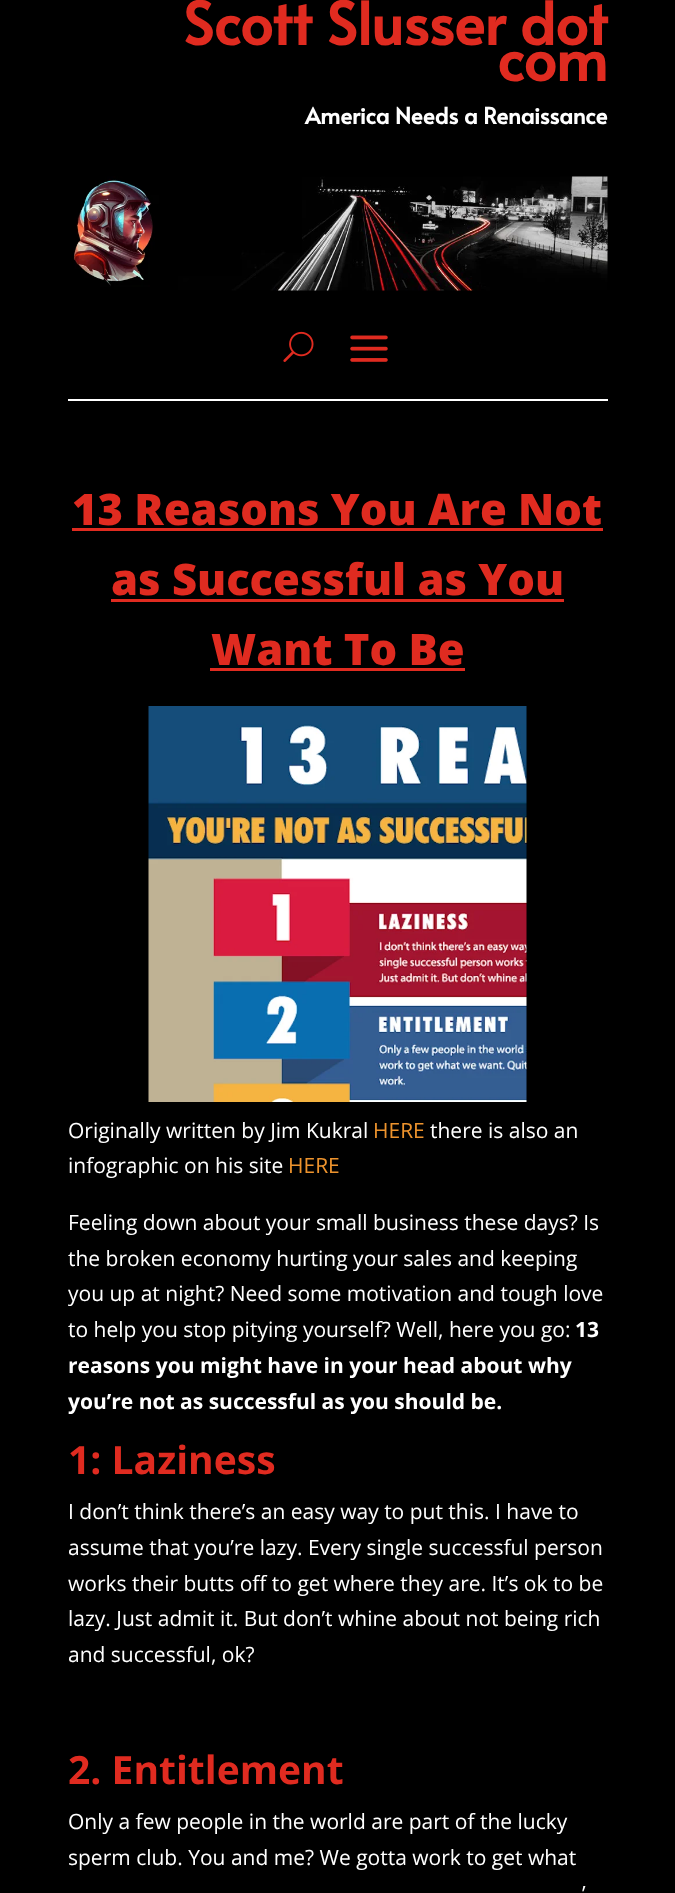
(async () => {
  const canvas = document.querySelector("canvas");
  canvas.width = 675;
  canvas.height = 1893;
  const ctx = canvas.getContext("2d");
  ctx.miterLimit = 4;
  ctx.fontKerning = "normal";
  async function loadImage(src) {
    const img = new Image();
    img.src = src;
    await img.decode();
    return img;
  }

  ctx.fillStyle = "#000000";
  ctx.fillRect(0, 0, 675, 1893);
  ctx.drawImage(await loadImage("img/1.png"), 73, 176, 535, 115);
  ctx.drawImage(await loadImage("img/2.png"), 283, 331, 31, 31);
  ctx.drawImage(await loadImage("img/3.png"), 350, 335, 38, 27);
  for (const [x, y, w, h, color] of [
    [68, 399, 540, 2, "#ffffff"],
    [72, 528, 531, 3, "#e02b20"],
    [111, 599, 453, 3, "#e02b20"],
    [210, 668, 255, 3, "#e02b20"],
  ]) {
    ctx.fillStyle = color;
    ctx.fillRect(x, y, w, h);
  }
  ctx.drawImage(await loadImage("img/4.png"), 148, 706, 379, 396);
  ctx.font = "bold 58.5px Alata";
  ctx.fillText("Scott Slusser dot", 183, 45);
  ctx.fillText("com", 497, 81);
  ctx.font = "bold 22.5px Alata";
  ctx.fillStyle = "#ffffff";
  ctx.fillText("America Needs a Renaissance", 305, 124);
  ctx.font = "800 43.5px Open Sans";
  ctx.fillStyle = "#e02b20";
  for (const [text, x, y] of [
    ["13 Reasons You Are Not", 72, 525],
    ["as Successful as You", 111, 595],
    ["Want To Be", 211, 665],
  ]) {
    ctx.fillText(text, x, y);
  }
  ctx.font = "21px Open Sans";
  ctx.fillStyle = "#ffffff";
  ctx.fillText("Originally written by Jim Kukral", 68, 1138);
  ctx.fillStyle = "#ed932d";
  ctx.fillText("HERE", 373, 1138);
  ctx.fillStyle = "#ffffff";
  ctx.fillText("there is also an", 430, 1138);
  ctx.fillText("infographic on his site", 68, 1173);
  ctx.fillStyle = "#ed932d";
  ctx.fillText("HERE", 288, 1173);
  ctx.fillStyle = "#ffffff";
  for (const [text, x, y] of [
    ["Feeling down about your small business these days? Is", 68, 1230],
    ["the broken economy hurting your sales and keeping", 68, 1266],
    ["you up at night? Need some motivation and tough love", 68, 1301],
    ["to help you stop pitying yourself? Well, here you go:", 68, 1337],
  ]) {
    ctx.fillText(text, x, y);
  }
  ctx.font = "bold 21px Open Sans";
  for (const [text, x, y] of [
    ["13", 575, 1337],
    ["reasons you might have in your head about why", 68, 1373],
    ["you’re not as successful as you should be.", 68, 1409],
  ]) {
    ctx.fillText(text, x, y);
  }
  ctx.font = "bold 39px Open Sans";
  ctx.fillStyle = "#e02b20";
  ctx.fillText("1: Laziness", 68, 1474);
  ctx.font = "21px Open Sans";
  ctx.fillStyle = "#ffffff";
  for (const [text, x, y] of [
    ["I don’t think there’s an easy way to put this. I have to", 68, 1519],
    ["assume that you’re lazy. Every single successful person", 68, 1555],
    ["works their butts off to get where they are. It’s ok to be", 68, 1591],
    ["lazy. Just admit it. But don’t whine about not being rich", 68, 1626],
    ["and successful, ok?", 68, 1662],
  ]) {
    ctx.fillText(text, x, y);
  }
  ctx.font = "bold 39px Open Sans";
  ctx.fillStyle = "#e02b20";
  ctx.fillText("2. Entitlement", 68, 1784);
  ctx.font = "21px Open Sans";
  ctx.fillStyle = "#ffffff";
  for (const [text, x, y] of [
    ["Only a few people in the world are part of the lucky", 68, 1829],
    ["sperm club. You and me? We gotta work to get what", 68, 1865],
    ["’", 582, 1901],
  ]) {
    ctx.fillText(text, x, y);
  }
})();
